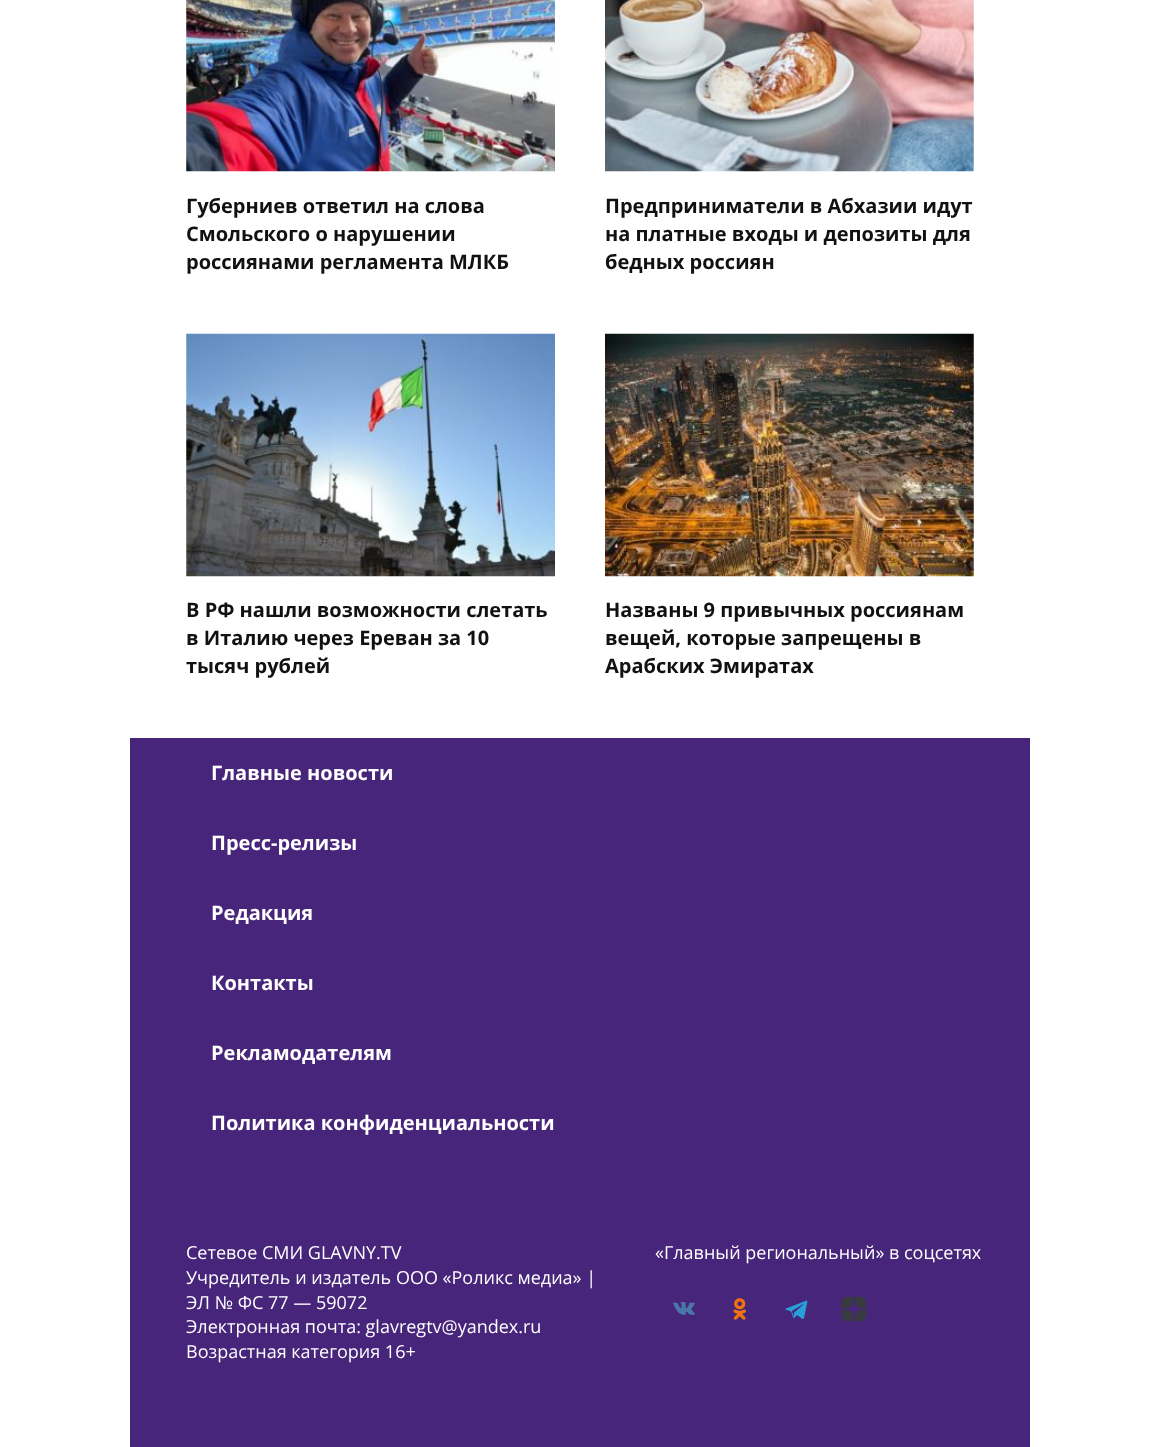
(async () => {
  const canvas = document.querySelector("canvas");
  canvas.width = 1160;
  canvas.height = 1447;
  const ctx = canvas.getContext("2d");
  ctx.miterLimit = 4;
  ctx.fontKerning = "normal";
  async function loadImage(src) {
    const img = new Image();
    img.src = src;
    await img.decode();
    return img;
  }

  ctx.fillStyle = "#ffffff";
  ctx.fillRect(0, 0, 1160, 1447);
  ctx.drawImage(await loadImage("img/1.png"), 186, 0, 369, 172);
  ctx.drawImage(await loadImage("img/2.png"), 605, 0, 369, 172);
  ctx.drawImage(await loadImage("img/3.png"), 186, 333, 369, 244);
  ctx.drawImage(await loadImage("img/4.png"), 605, 333, 369, 244);
  ctx.fillStyle = "#47257a";
  ctx.fillRect(130, 738, 900, 709);
  ctx.drawImage(await loadImage("img/5.png"), 673, 1302, 22, 13);
  ctx.drawImage(await loadImage("img/6.png"), 733, 1298, 13, 22);
  ctx.drawImage(await loadImage("img/7.png"), 785, 1300, 23, 19);
  ctx.drawImage(await loadImage("img/8.png"), 841, 1296, 26, 26);
  ctx.font = "bold 20px Open Sans";
  ctx.fillStyle = "#111111";
  for (const [text, x, y] of [
    ["Губерниев ответил на слова", 186, 213],
    ["Смольского о нарушении", 186, 241],
    ["россиянами регламента МЛКБ", 186, 269],
    ["Предприниматели в Абхазии идут", 605, 213],
    ["на платные входы и депозиты для", 605, 241],
    ["бедных россиян", 605, 269],
    ["В РФ нашли возможности слетать", 186, 617],
    ["в Италию через Ереван за 10", 186, 645],
    ["тысяч рублей", 186, 673],
    ["Названы 9 привычных россиянам", 605, 617],
    ["вещей, которые запрещены в", 605, 645],
    ["Арабских Эмиратах", 605, 673],
  ]) {
    ctx.fillText(text, x, y);
  }
  ctx.fillStyle = "#ffffff";
  for (const [text, x, y] of [
    ["Главные новости", 211, 780],
    ["Пресс-релизы", 211, 850],
    ["Редакция", 211, 920],
    ["Контакты", 211, 990],
    ["Рекламодателям", 211, 1060],
    ["Политика конфиденциальности", 211, 1130],
  ]) {
    ctx.fillText(text, x, y);
  }
  ctx.font = "18px Open Sans";
  for (const [text, x, y] of [
    ["Сетевое СМИ GLAVNY.TV", 186, 1259],
    ["Учредитель и издатель ООО «Роликс медиа» |", 186, 1284],
    ["ЭЛ № ФС 77 — 59072", 186, 1309],
    ["Электронная почта: glavregtv@yandex.ru", 186, 1333],
    ["Возрастная категория 16+", 186, 1358],
    ["«Главный региональный» в соцсетях", 655, 1259],
  ]) {
    ctx.fillText(text, x, y);
  }
})();
